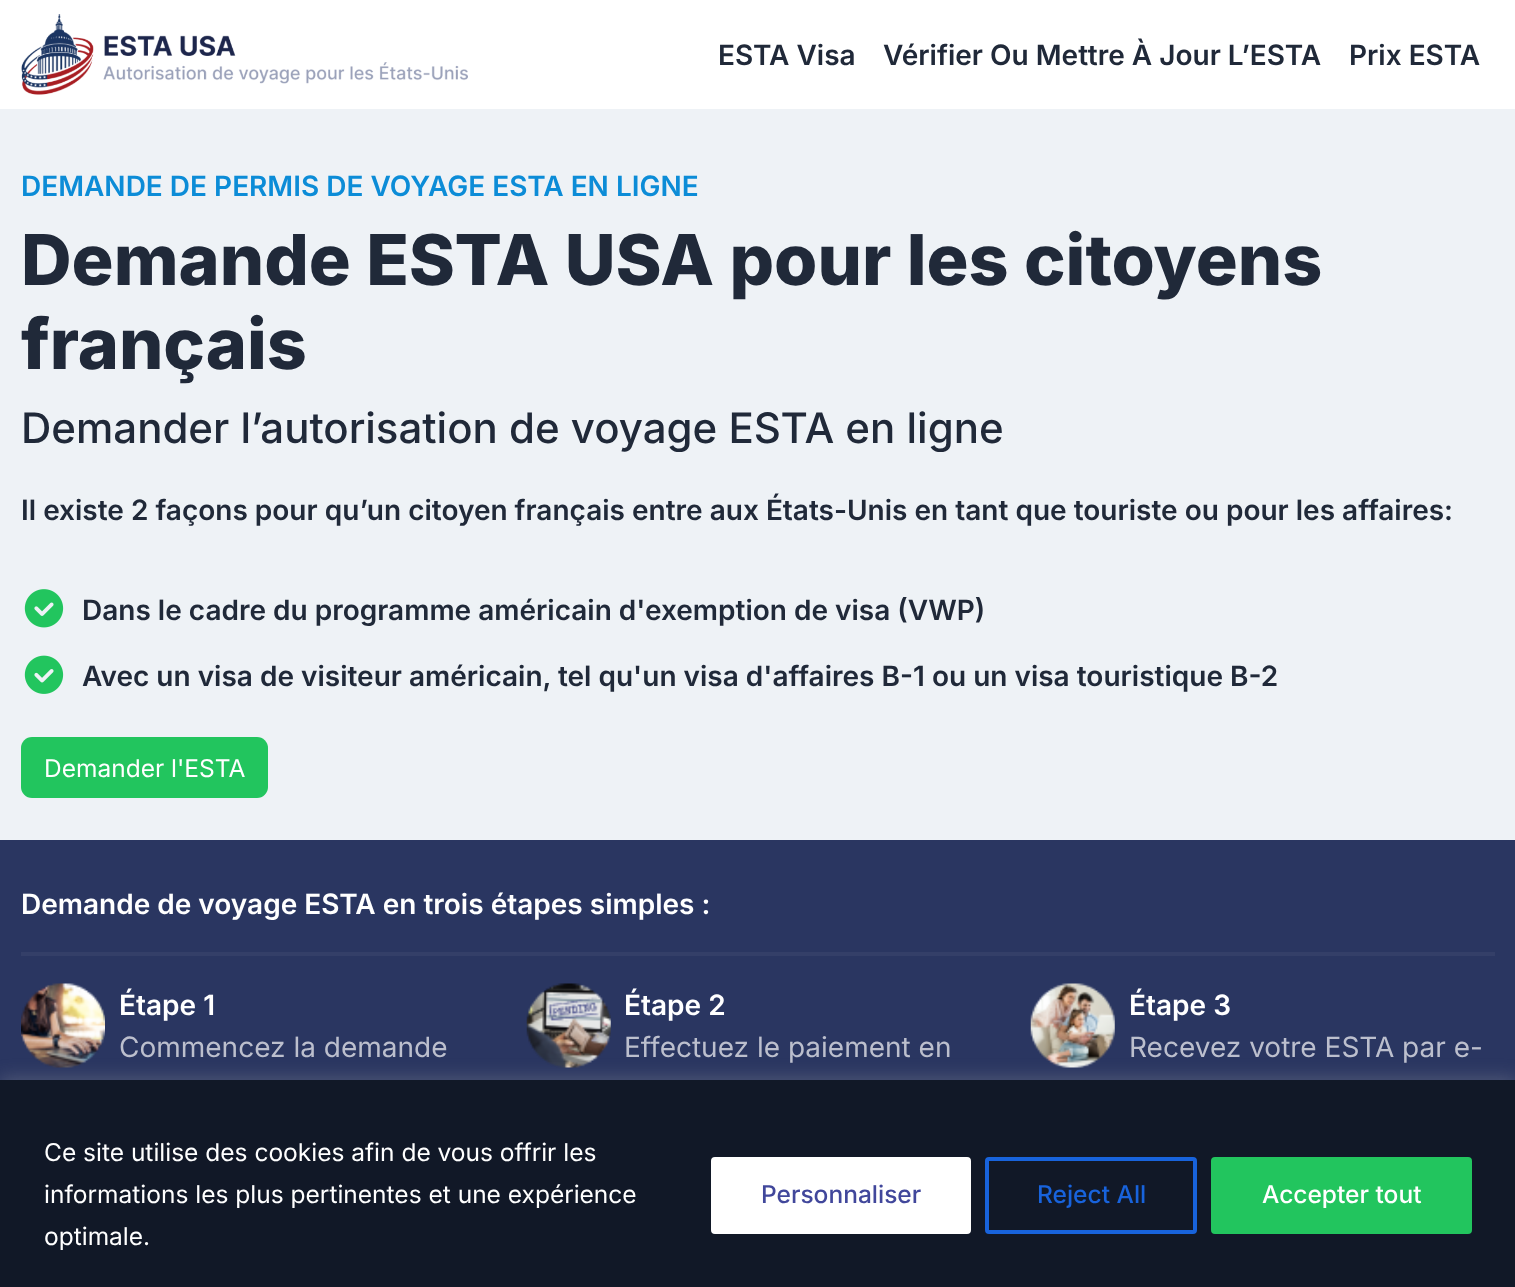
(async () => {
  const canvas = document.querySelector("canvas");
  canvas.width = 1515;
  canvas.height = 1287;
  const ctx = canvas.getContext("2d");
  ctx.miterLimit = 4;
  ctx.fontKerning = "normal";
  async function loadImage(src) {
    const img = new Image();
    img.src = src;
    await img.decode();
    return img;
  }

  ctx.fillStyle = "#ffffff";
  ctx.fillRect(0, 0, 1515, 1287);
  ctx.drawImage(await loadImage("img/1.png"), 21, 14, 447, 81);
  ctx.fillStyle = "#eef2f6";
  ctx.fillRect(0, 109, 1515, 731);
  ctx.drawImage(await loadImage("img/2.png"), 24, 589, 40, 39);
  ctx.drawImage(await loadImage("img/3.png"), 24, 655, 40, 39);
  ctx.fillStyle = "#22c55e";
  ctx.beginPath();
  ctx.roundRect(21, 737, 247, 61, 11);
  ctx.fill();
  ctx.fillStyle = "#2a3661";
  ctx.fillRect(0, 840, 1515, 240);
  ctx.fillStyle = "#343f68";
  ctx.fillRect(21, 952, 1474, 4);
  ctx.drawImage(await loadImage("img/4.png"), 21, 983, 84, 85);
  ctx.drawImage(await loadImage("img/5.png"), 526, 983, 85, 85);
  ctx.drawImage(await loadImage("img/6.png"), 1030, 983, 85, 85);
  ctx.fillStyle = "rgba(172, 171, 171, 0.3)";
  ctx.filter = "blur(9px)";
  ctx.beginPath();
  ctx.rect(0, 1078, 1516, 208);
  ctx.fill();
  ctx.filter = "none";
  ctx.fillStyle = "#111827";
  ctx.fillRect(0, 1080, 1515, 207);
  ctx.fillStyle = "#ffffff";
  ctx.beginPath();
  ctx.roundRect(713, 1159, 256, 73, 2);
  ctx.fill();
  ctx.strokeStyle = "#ffffff";
  ctx.lineWidth = 4;
  ctx.stroke();
  ctx.beginPath();
  ctx.roundRect(987, 1159, 208, 73, 2);
  ctx.strokeStyle = "#1863dc";
  ctx.stroke();
  ctx.fillStyle = "#22c55e";
  ctx.beginPath();
  ctx.roundRect(1213, 1159, 257, 73, 2);
  ctx.fill();
  ctx.strokeStyle = "#22c55e";
  ctx.stroke();
  ctx.font = "600 28px Inter";
  ctx.fillStyle = "#202939";
  for (const [text, x, y] of [
    ["ESTA Visa", 718, 65],
    ["Vérifier Ou Mettre À Jour L’ESTA", 883, 65],
    ["Prix ESTA", 1349, 65],
  ]) {
    ctx.fillText(text, x, y);
  }
  ctx.fillStyle = "#0c8cd7";
  ctx.fillText("DEMANDE DE PERMIS DE VOYAGE ESTA EN LIGNE", 21, 196);
  ctx.font = "800 70px Inter";
  ctx.fillStyle = "#202939";
  ctx.fillText("Demande ESTA USA pour les citoyens", 21, 285);
  ctx.fillText("français", 21, 369);
  ctx.font = "500 42px Inter";
  ctx.fillText("Demander l’autorisation de voyage ESTA en ligne", 21, 443);
  ctx.font = "600 28px Inter";
  for (const [text, x, y] of [
    ["Il existe 2 façons pour qu’un citoyen français entre aux États-Unis en tant que touriste ou pour les affaires:", 21, 520],
    ["Dans le cadre du programme américain d'exemption de visa (VWP)", 82, 620],
    ["Avec un visa de visiteur américain, tel qu'un visa d'affaires B-1 ou un visa touristique B-2", 82, 686],
  ]) {
    ctx.fillText(text, x, y);
  }
  ctx.font = "24.5px Inter";
  ctx.fillStyle = "#ffffff";
  ctx.fillText("Demander l'ESTA", 44, 777);
  ctx.font = "600 28px Inter";
  ctx.fillText("Demande de voyage ESTA en trois étapes simples :", 21, 914);
  ctx.fillText("Étape 1", 119, 1015);
  ctx.font = "28px Inter";
  ctx.fillStyle = "#bcbfcd";
  ctx.fillText("Commencez la demande", 119, 1057);
  ctx.font = "600 28px Inter";
  ctx.fillStyle = "#ffffff";
  ctx.fillText("Étape 2", 624, 1015);
  ctx.font = "28px Inter";
  ctx.fillStyle = "#bcbfcd";
  ctx.fillText("Effectuez le paiement en", 624, 1057);
  ctx.font = "600 28px Inter";
  ctx.fillStyle = "#ffffff";
  ctx.fillText("Étape 3", 1129, 1015);
  ctx.font = "28px Inter";
  ctx.fillStyle = "#bcbfcd";
  ctx.fillText("Recevez votre ESTA par e-", 1129, 1057);
  ctx.font = "24.5px Inter";
  ctx.fillStyle = "#ffffff";
  for (const [text, x, y] of [
    ["Ce site utilise des cookies afin de vous offrir les", 44, 1161],
    ["informations les plus pertinentes et une expérience", 44, 1203],
    ["optimale.", 44, 1245],
  ]) {
    ctx.fillText(text, x, y);
  }
  ctx.font = "500 24.5px Inter";
  ctx.fillStyle = "#41479b";
  ctx.fillText("Personnaliser", 761, 1203);
  ctx.fillStyle = "#1863dc";
  ctx.fillText("Reject All", 1037, 1203);
  ctx.fillStyle = "#ffffff";
  ctx.fillText("Accepter tout", 1262, 1203);
})();
